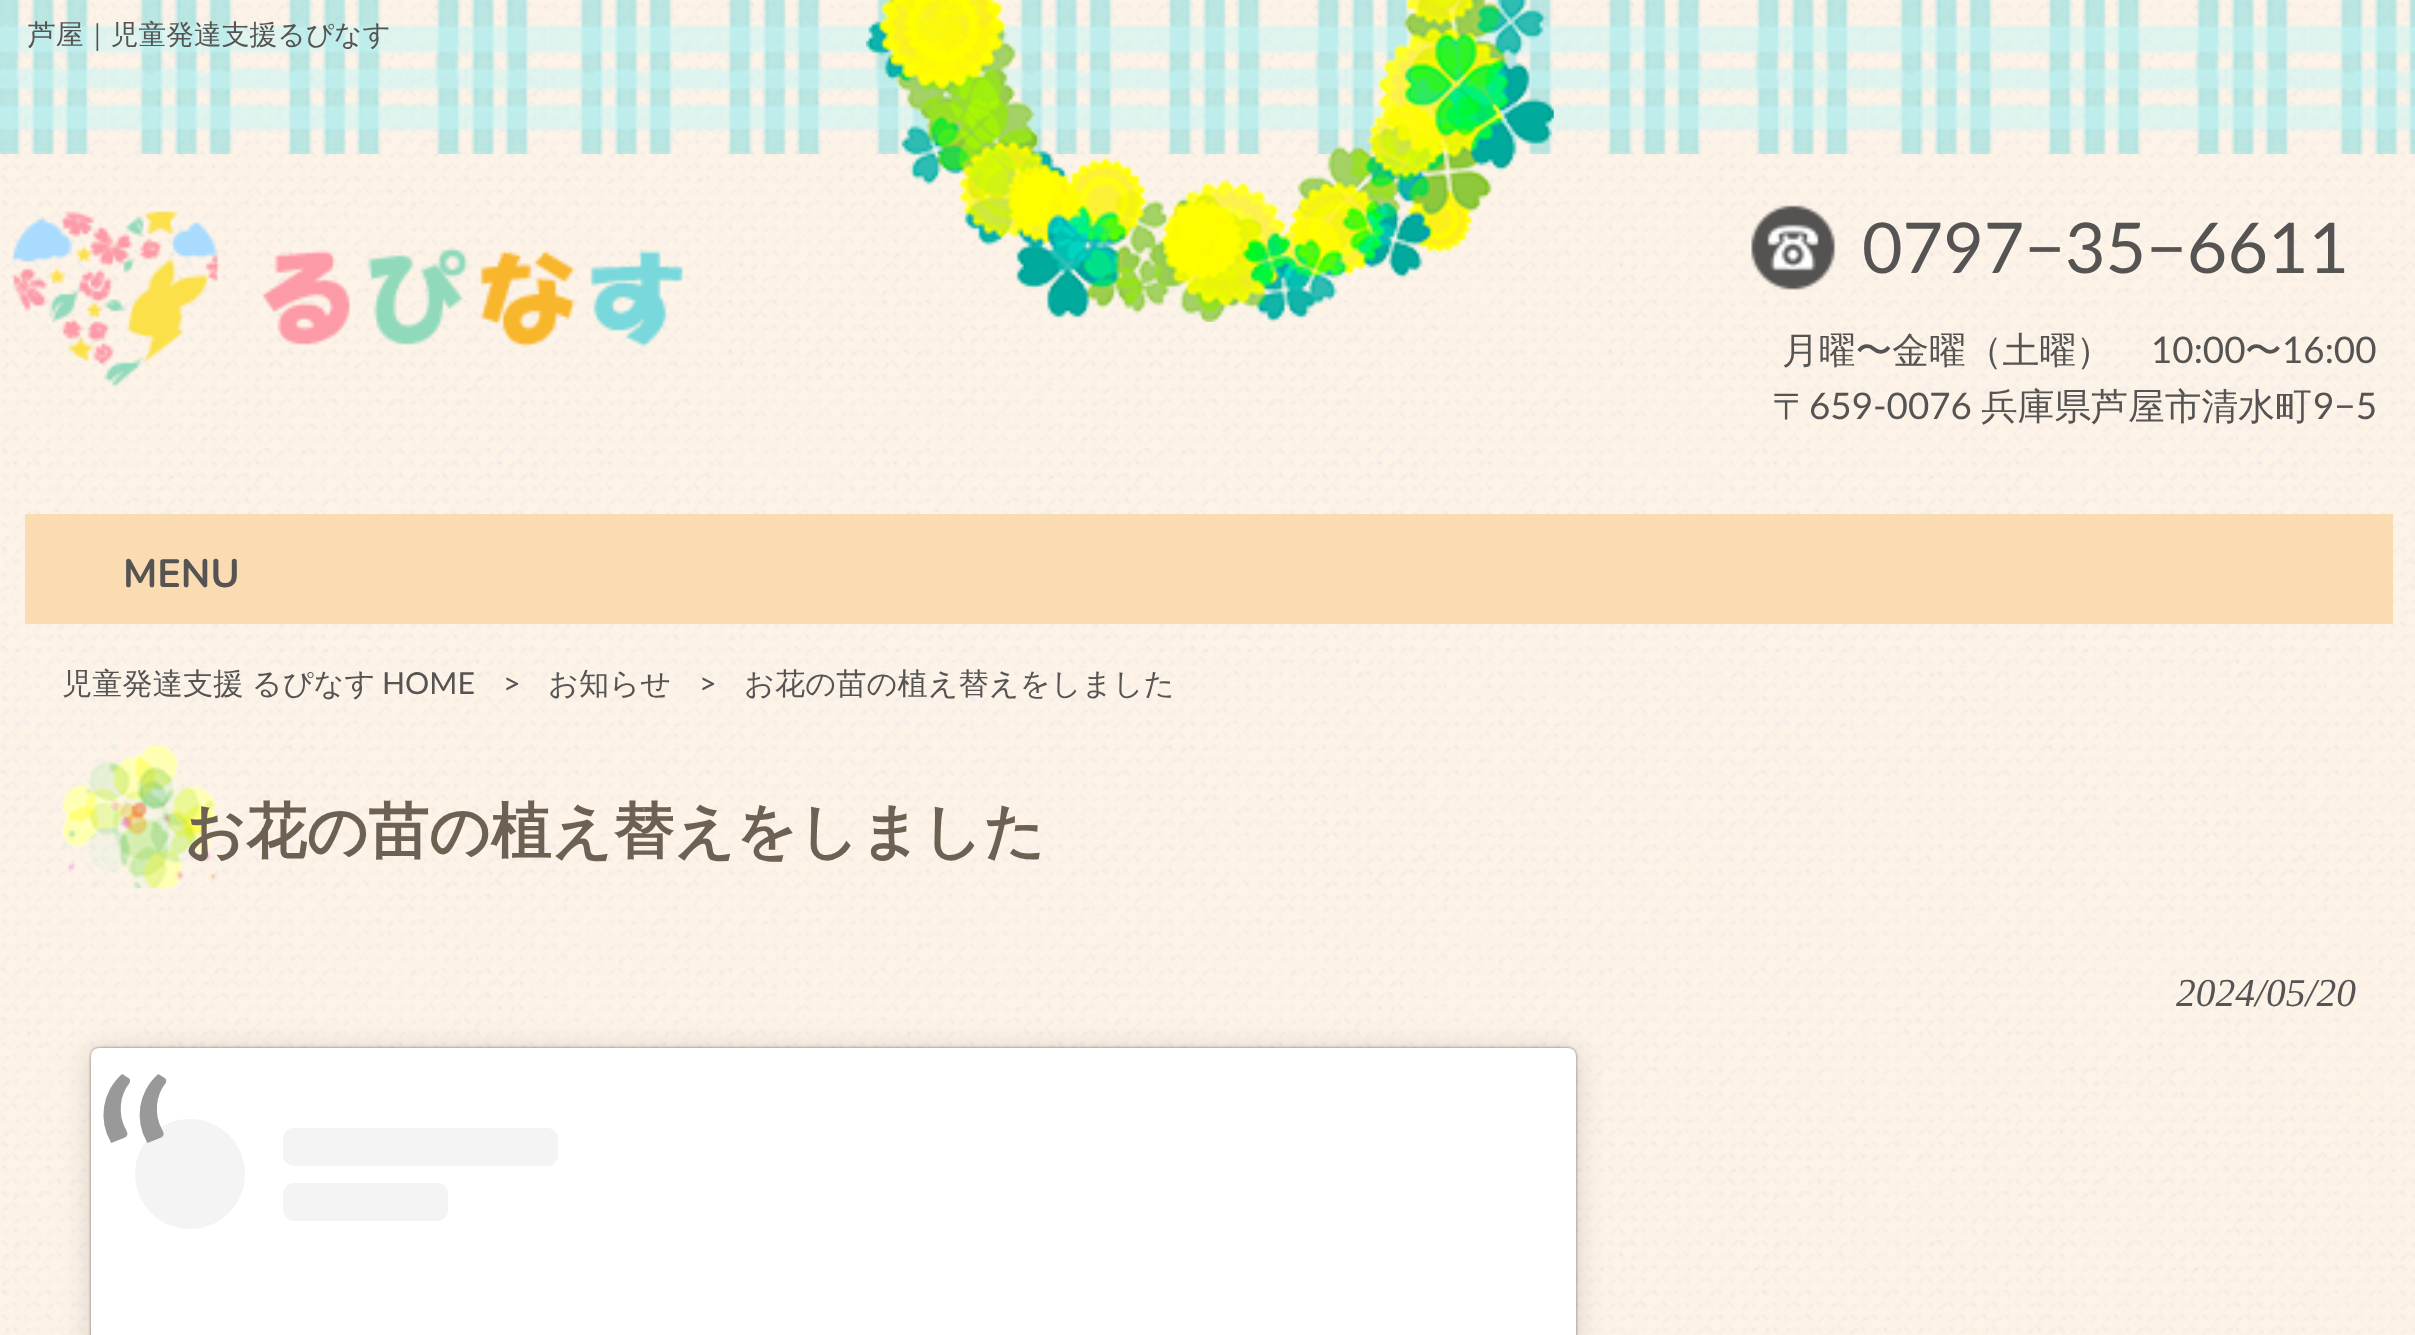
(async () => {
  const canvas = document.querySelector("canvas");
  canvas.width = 2415;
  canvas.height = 1335;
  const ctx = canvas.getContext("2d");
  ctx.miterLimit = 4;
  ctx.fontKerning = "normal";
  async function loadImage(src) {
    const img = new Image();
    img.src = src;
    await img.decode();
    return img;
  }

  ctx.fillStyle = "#fef3e7";
  ctx.fillRect(0, 0, 2415, 1335);
  ctx.drawImage(await loadImage("img/1.png"), 0, 0, 2415, 1335);
  ctx.drawImage(await loadImage("img/2.png"), 0, 0, 2415, 322);
  ctx.drawImage(await loadImage("img/3.png"), 10, 211, 673, 177);
  ctx.drawImage(await loadImage("img/4.png"), 1751, 205, 85, 85);
  ctx.fillStyle = "#fbdcb2";
  ctx.fillRect(25, 514, 2368, 110);
  ctx.drawImage(await loadImage("img/5.png"), 62, 743, 159, 146);
  ctx.fillStyle = "rgba(0, 0, 0, 0.15)";
  ctx.filter = "blur(14px)";
  ctx.beginPath();
  ctx.roundRect(91, 1051, 1485, 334, 8);
  ctx.fill();
  ctx.filter = "none";
  ctx.fillStyle = "rgba(0, 0, 0, 0.5)";
  ctx.filter = "blur(1.5px)";
  ctx.beginPath();
  ctx.roundRect(91, 1048, 1485, 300, 8);
  ctx.fill();
  ctx.filter = "none";
  ctx.fillStyle = "#ffffff";
  ctx.beginPath();
  ctx.roundRect(91, 1048, 1485, 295, 8);
  ctx.fill();
  ctx.fillStyle = "#f4f4f4";
  ctx.beginPath();
  ctx.arc(190, 1174, 55, 0, Math.PI * 2);
  ctx.fill();
  ctx.beginPath();
  ctx.roundRect(283, 1128, 275, 38, 11);
  ctx.fill();
  ctx.beginPath();
  ctx.roundRect(283, 1183, 165, 38, 11);
  ctx.fill();
  ctx.font = "500 27.75px WenQuanYi Zen Hei";
  ctx.fillStyle = "#555453";
  ctx.fillText("芦屋｜児童発達支援るぴなす", 28, 44);
  ctx.font = "70px Lato";
  ctx.fillText("0797−35−6611", 1862, 273);
  ctx.font = "500 36.75px WenQuanYi Zen Hei";
  ctx.fillText("月曜〜金曜（土曜）", 1782, 363);
  ctx.font = "36.75px Lato";
  ctx.fillText("10:00", 2151, 363);
  ctx.font = "500 36.75px WenQuanYi Zen Hei";
  ctx.fillText("〜", 2245, 363);
  ctx.font = "36.75px Lato";
  ctx.fillText("16:00", 2282, 363);
  ctx.font = "500 36.75px WenQuanYi Zen Hei";
  ctx.fillText("〒", 1772, 419);
  ctx.font = "36.75px Lato";
  ctx.fillText("659-0076", 1809, 419);
  ctx.font = "500 36.75px WenQuanYi Zen Hei";
  ctx.fillText("兵庫県芦屋市清水町", 1981, 419);
  ctx.font = "36.75px Lato";
  ctx.fillText("9−5", 2313, 419);
  ctx.font = "bold 39.5px Nunito";
  ctx.fillText("MENU", 123, 587);
  ctx.wordSpacing = "-1px";
  ctx.font = "500 30.25px WenQuanYi Zen Hei";
  ctx.fillText("児童発達支援 るぴなす", 62, 694);
  ctx.wordSpacing = "0px";
  ctx.font = "30.25px Lato";
  ctx.fillText("HOME", 382, 694);
  ctx.fillText(">", 503, 694);
  ctx.font = "500 30.25px WenQuanYi Zen Hei";
  ctx.fillText("お知らせ", 548, 694);
  ctx.font = "30.25px Lato";
  ctx.fillText(">", 699, 694);
  ctx.font = "500 30.25px WenQuanYi Zen Hei";
  ctx.fillText("お花の苗の植え替えをしました", 744, 694);
  ctx.font = "bold 60.5px WenQuanYi Zen Hei";
  ctx.fillStyle = "#6d6153";
  ctx.fillText("お花の苗の植え替えをしました", 184, 852);
  ctx.font = "italic 39.5px Liberation Serif";
  ctx.fillStyle = "#555453";
  ctx.fillText("2024/05/20", 2176, 1006);
  ctx.font = "238px Lato";
  ctx.fillStyle = "#999999";
  ctx.fillText("“", 91, 1256);
})();
